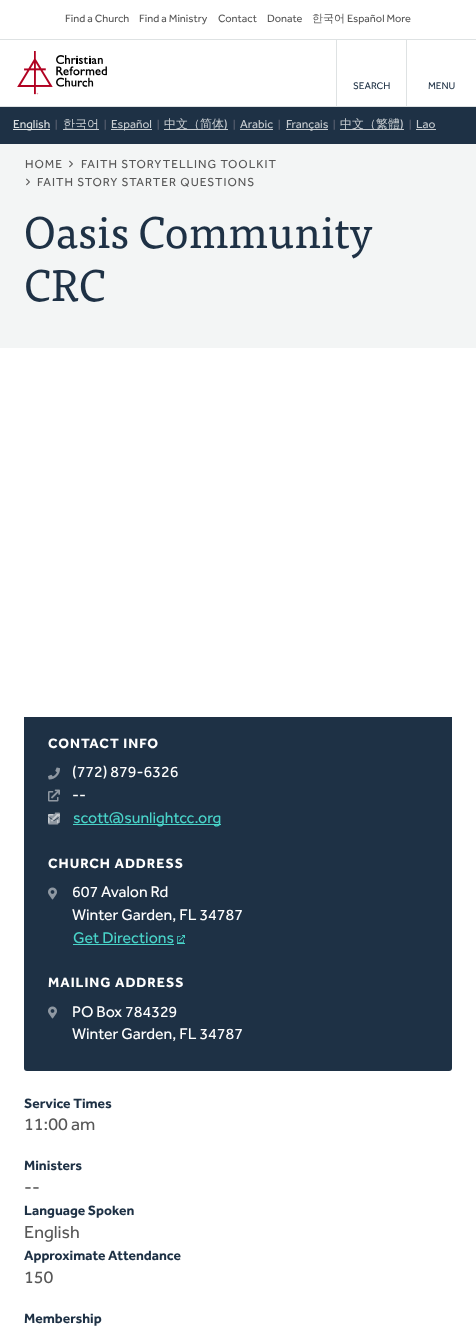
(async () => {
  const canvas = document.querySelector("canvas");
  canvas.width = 476;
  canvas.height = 1330;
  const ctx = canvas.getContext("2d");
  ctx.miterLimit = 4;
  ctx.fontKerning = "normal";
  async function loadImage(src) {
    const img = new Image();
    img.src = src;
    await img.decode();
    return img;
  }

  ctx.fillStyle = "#ffffff";
  ctx.fillRect(0, 0, 476, 1330);
  ctx.fillStyle = "#dee2e3";
  ctx.fillRect(0, 106, 476, 1);
  ctx.fillRect(0, 39, 476, 1);
  ctx.drawImage(await loadImage("img/1.png"), 17, 51, 90, 44);
  for (const [x, y, w, h, color] of [
    [336, 40, 1, 66, "#dee2e3"],
    [406, 40, 1, 66, "#dee2e3"],
    [0, 107, 476, 37, "#1e3145"],
    [13, 129, 37, 1, "#dee2e3"],
    [63, 129, 36, 1, "#c8cdd1"],
    [111, 129, 41, 1, "#c8cdd1"],
    [164, 129, 64, 1, "#c8cdd1"],
    [240, 129, 33, 1, "#c8cdd1"],
    [286, 129, 42, 1, "#c8cdd1"],
    [340, 129, 64, 1, "#c8cdd1"],
    [416, 129, 20, 1, "#c8cdd1"],
    [0, 144, 476, 204, "#f3f5f5"],
  ]) {
    ctx.fillStyle = color;
    ctx.fillRect(x, y, w, h);
  }
  ctx.drawImage(await loadImage("img/2.png"), 69, 160, 4, 8);
  ctx.drawImage(await loadImage("img/2.png"), 26, 178, 4, 8);
  ctx.fillStyle = "#1e3145";
  ctx.beginPath();
  ctx.roundRect(24, 717, 428, 354, [0, 0, 3, 3]);
  ctx.fill();
  ctx.drawImage(await loadImage("img/3.png"), 48, 767, 12, 13);
  ctx.drawImage(await loadImage("img/4.png"), 48, 789, 12, 13);
  ctx.drawImage(await loadImage("img/4.png"), 48, 812, 12, 13);
  ctx.drawImage(await loadImage("img/5.png"), 48, 814, 12, 9);
  ctx.fillStyle = "#49d4c9";
  ctx.fillRect(73, 824, 148, 1);
  ctx.drawImage(await loadImage("img/6.png"), 48, 887, 9, 13);
  ctx.fillRect(73, 944, 101, 1);
  ctx.drawImage(await loadImage("img/7.png"), 177, 935, 8, 8);
  ctx.fillRect(177, 943, 8, 1);
  ctx.drawImage(await loadImage("img/6.png"), 48, 1006, 9, 13);
  ctx.font = "11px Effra";
  ctx.fillStyle = "#585858";
  for (const [text, x, y] of [
    ["Find a Church", 65, 22],
    ["Find a Ministry", 139, 22],
    ["Contact", 218, 22],
    ["Donate", 267, 22],
  ]) {
    ctx.fillText(text, x, y);
  }
  ctx.font = "500 11px WenQuanYi Zen Hei";
  ctx.fillText("한국어", 312, 22);
  ctx.font = "11px Effra";
  ctx.fillText("Español More", 347, 22);
  ctx.font = "10px Effra";
  ctx.fillStyle = "#1e3145";
  ctx.fillText("SEARCH", 353, 89);
  ctx.fillText("MENU", 428, 89);
  ctx.font = "12px Effra";
  ctx.fillStyle = "#dee2e3";
  ctx.fillText("English", 13, 128);
  ctx.font = "10px Effra";
  ctx.fillStyle = "#6a6f7c";
  ctx.fillText("|", 55, 128);
  ctx.font = "500 12px WenQuanYi Zen Hei";
  ctx.fillStyle = "#c8cdd1";
  ctx.fillText("한국어", 63, 128);
  ctx.font = "10px Effra";
  ctx.fillStyle = "#6a6f7c";
  ctx.fillText("|", 104, 128);
  ctx.font = "12px Effra";
  ctx.fillStyle = "#c8cdd1";
  ctx.fillText("Español", 111, 128);
  ctx.font = "10px Effra";
  ctx.fillStyle = "#6a6f7c";
  ctx.fillText("|", 157, 128);
  ctx.font = "500 12px WenQuanYi Zen Hei";
  ctx.fillStyle = "#c8cdd1";
  ctx.fillText("中文（简体", 164, 128);
  ctx.font = "12px Effra";
  ctx.fillText(")", 224, 128);
  ctx.font = "10px Effra";
  ctx.fillStyle = "#6a6f7c";
  ctx.fillText("|", 233, 128);
  ctx.font = "12px Effra";
  ctx.fillStyle = "#c8cdd1";
  ctx.fillText("Arabic", 240, 128);
  ctx.font = "10px Effra";
  ctx.fillStyle = "#6a6f7c";
  ctx.fillText("|", 278, 128);
  ctx.font = "12px Effra";
  ctx.fillStyle = "#c8cdd1";
  ctx.fillText("Français", 286, 128);
  ctx.font = "10px Effra";
  ctx.fillStyle = "#6a6f7c";
  ctx.fillText("|", 333, 128);
  ctx.font = "500 12px WenQuanYi Zen Hei";
  ctx.fillStyle = "#c8cdd1";
  ctx.fillText("中文（繁體", 340, 128);
  ctx.font = "12px Effra";
  ctx.fillText(")", 400, 128);
  ctx.font = "10px Effra";
  ctx.fillStyle = "#6a6f7c";
  ctx.fillText("|", 409, 128);
  ctx.font = "12px Effra";
  ctx.fillStyle = "#c8cdd1";
  ctx.fillText("Lao", 416, 128);
  ctx.letterSpacing = "1px";
  ctx.fillStyle = "#585858";
  for (const [text, x, y] of [
    ["HOME", 25, 168],
    ["FAITH STORYTELLING TOOLKIT", 81, 168],
    ["FAITH STORY STARTER QUESTIONS", 37, 186],
  ]) {
    ctx.fillText(text, x, y);
  }
  ctx.letterSpacing = "0px";
  ctx.font = "44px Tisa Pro";
  ctx.fillStyle = "#1e3145";
  ctx.fillText("Oasis Community", 24, 248);
  ctx.fillText("CRC", 24, 301);
  ctx.letterSpacing = "1px";
  ctx.font = "bold 14px Effra";
  ctx.fillStyle = "#ffffff";
  ctx.fillText("CONTACT INFO", 48, 748);
  ctx.letterSpacing = "0px";
  ctx.font = "16px Effra";
  ctx.fillText("(772) 879-6326", 72, 777);
  ctx.fillText("--", 72, 800);
  ctx.fillStyle = "#49d4c9";
  ctx.fillText("scott@sunlightcc.org", 73, 823);
  ctx.letterSpacing = "1px";
  ctx.font = "bold 14px Effra";
  ctx.fillStyle = "#ffffff";
  ctx.fillText("CHURCH ADDRESS", 48, 868);
  ctx.letterSpacing = "0px";
  ctx.font = "16px Effra";
  ctx.fillText("607 Avalon Rd", 72, 897);
  ctx.fillText("Winter Garden, FL 34787", 72, 920);
  ctx.fillStyle = "#49d4c9";
  ctx.fillText("Get Directions", 73, 943);
  ctx.letterSpacing = "1px";
  ctx.font = "bold 14px Effra";
  ctx.fillStyle = "#ffffff";
  ctx.fillText("MAILING ADDRESS", 48, 987);
  ctx.letterSpacing = "0px";
  ctx.font = "16px Effra";
  ctx.fillText("PO Box 784329", 72, 1017);
  ctx.fillText("Winter Garden, FL 34787", 72, 1039);
  ctx.font = "bold 14px Effra";
  ctx.fillStyle = "#1e3145";
  ctx.fillText("Service Times", 24, 1108);
  ctx.font = "18px Effra";
  ctx.fillStyle = "#585858";
  ctx.fillText("11:00 am", 24, 1130);
  ctx.font = "bold 14px Effra";
  ctx.fillStyle = "#1e3145";
  ctx.fillText("Ministers", 24, 1170);
  ctx.font = "18px Effra";
  ctx.fillStyle = "#585858";
  ctx.fillText("--", 24, 1193);
  ctx.font = "bold 14px Effra";
  ctx.fillStyle = "#1e3145";
  ctx.fillText("Language Spoken", 24, 1215);
  ctx.font = "18px Effra";
  ctx.fillStyle = "#585858";
  ctx.fillText("English", 24, 1238);
  ctx.font = "bold 14px Effra";
  ctx.fillStyle = "#1e3145";
  ctx.fillText("Approximate Attendance", 24, 1260);
  ctx.font = "18px Effra";
  ctx.fillStyle = "#585858";
  ctx.fillText("150", 24, 1283);
  ctx.font = "bold 14px Effra";
  ctx.fillStyle = "#1e3145";
  ctx.fillText("Membership", 24, 1323);
})();
